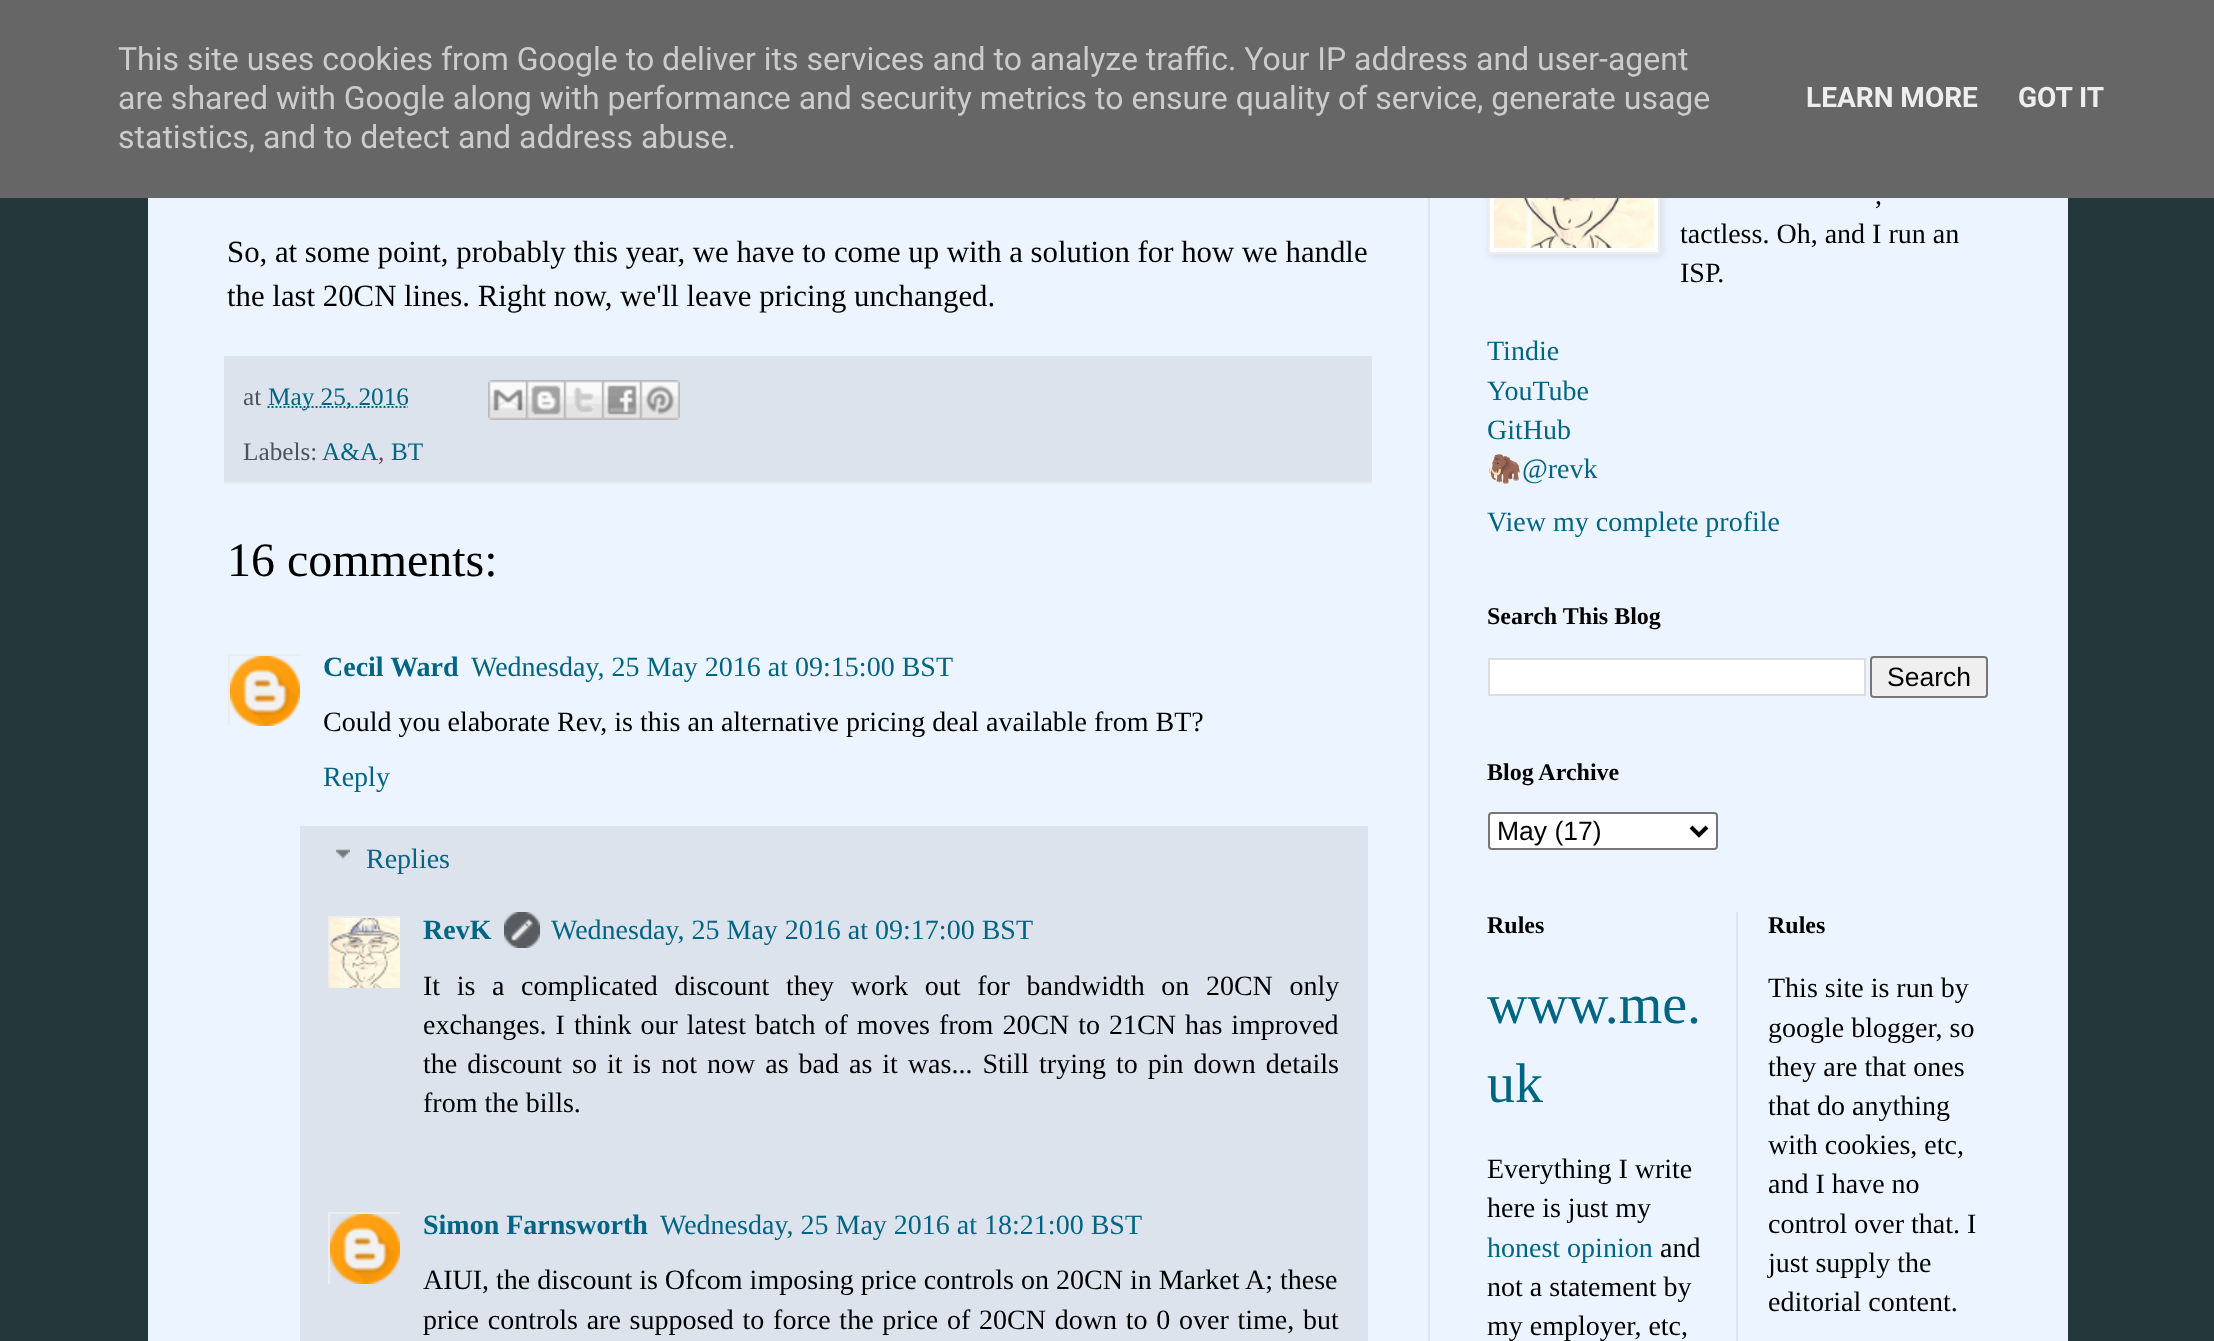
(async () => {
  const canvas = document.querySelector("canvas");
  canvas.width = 2214;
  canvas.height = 1341;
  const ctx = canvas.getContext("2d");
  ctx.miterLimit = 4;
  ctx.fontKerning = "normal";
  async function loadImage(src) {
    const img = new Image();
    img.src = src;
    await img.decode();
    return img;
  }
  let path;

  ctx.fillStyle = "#24383b";
  ctx.fillRect(0, 0, 2214, 1341);
  ctx.fillStyle = "#ecf5ff";
  ctx.fillRect(148, 198, 1920, 1143);
  ctx.fillStyle = "rgba(0, 0, 0, 0.1)";
  ctx.filter = "blur(5px)";
  ctx.beginPath();
  ctx.rect(1490, 84, 172, 172);
  ctx.fill();
  ctx.filter = "none";
  ctx.fillStyle = "#ffffff";
  ctx.fillRect(1490, 198, 168, 54);
  ctx.strokeStyle = "#ededed";
  ctx.lineWidth = 2;
  ctx.strokeRect(1489, 83, 170, 170);
  for (const [x, y, w, h, color] of [
    [0, 0, 2214, 198, "#666666"],
    [1428, 198, 2, 1143, "#dce7ed"],
    [224, 356, 1148, 126, "#dce3ed"],
    [224, 482, 1148, 2, "#ededed"],
  ]) {
    ctx.fillStyle = color;
    ctx.fillRect(x, y, w, h);
  }
  path = new Path2D("M267.5 407H408");
  ctx.strokeStyle = "#006583";
  ctx.setLineDash([2, 2]);
  ctx.stroke(path);
  ctx.drawImage(await loadImage("img/1.png"), 488, 380, 38, 40);
  ctx.drawImage(await loadImage("img/2.png"), 526, 380, 38, 40);
  ctx.drawImage(await loadImage("img/3.png"), 564, 380, 38, 40);
  ctx.drawImage(await loadImage("img/4.png"), 602, 380, 38, 40);
  ctx.drawImage(await loadImage("img/5.png"), 640, 380, 40, 40);
  ctx.save();
  ctx.beginPath();
  ctx.rect(228, 654, 72, 72);
  ctx.clip();
  ctx.strokeStyle = "#ededed";
  ctx.setLineDash([]);
  ctx.strokeRect(229, 655, 72, 72);
  ctx.restore();
  ctx.drawImage(await loadImage("img/6.png"), 230, 656, 70, 70);
  ctx.fillStyle = "#dce3ed";
  ctx.fillRect(300, 826, 1068, 515);
  ctx.drawImage(await loadImage("img/7.png"), 336, 849, 14, 10);
  ctx.save();
  ctx.beginPath();
  ctx.rect(328, 916, 72, 72);
  ctx.clip();
  ctx.strokeStyle = "#ededed";
  ctx.setLineDash([]);
  ctx.strokeRect(329, 917, 74, 74);
  ctx.restore();
  ctx.drawImage(await loadImage("img/8.png"), 330, 918, 70, 70);
  ctx.drawImage(await loadImage("img/9.png"), 504, 912, 36, 36);
  ctx.save();
  ctx.beginPath();
  ctx.rect(328, 1212, 72, 72);
  ctx.clip();
  ctx.strokeStyle = "#ededed";
  ctx.setLineDash([]);
  ctx.strokeRect(329, 1213, 72, 72);
  ctx.restore();
  ctx.drawImage(await loadImage("img/10.png"), 330, 1214, 70, 70);
  ctx.drawImage(await loadImage("img/11.png"), 1494, 198, 160, 50);
  ctx.fillStyle = "#ffffff";
  ctx.beginPath();
  ctx.rect(1489, 659, 376, 36);
  ctx.fill();
  ctx.strokeStyle = "#dddddd";
  ctx.setLineDash([]);
  ctx.stroke();
  ctx.fillStyle = "#efefef";
  ctx.beginPath();
  ctx.roundRect(1871, 657, 116, 40, 3);
  ctx.fill();
  ctx.strokeStyle = "#767676";
  ctx.stroke();
  ctx.fillStyle = "#ffffff";
  ctx.beginPath();
  ctx.roundRect(1489, 813, 228, 36, 3);
  ctx.fill();
  ctx.stroke();
  path = new Path2D("M1691 827L1699 835L1707 827");
  ctx.strokeStyle = "#000000";
  ctx.lineWidth = 4;
  ctx.stroke(path);
  ctx.fillStyle = "#dce7ed";
  ctx.fillRect(1736, 912, 2, 429);
  ctx.font = "32px Roboto";
  ctx.fillStyle = "#cccccc";
  for (const [text, x, y] of [
    ["This site uses cookies from Google to deliver its services and to analyze traffic. Your IP address and user-agent", 118, 70],
    ["are shared with Google along with performance and security metrics to ensure quality of service, generate usage", 118, 109],
    ["statistics, and to detect and address abuse.", 118, 148],
  ]) {
    ctx.fillText(text, x, y);
  }
  ctx.font = "bold 28px Roboto";
  ctx.fillStyle = "#eeeeee";
  ctx.fillText("LEARN MORE", 1806, 107);
  ctx.fillText("GOT IT", 2018, 107);
  ctx.font = "30.8px Liberation Serif";
  ctx.fillStyle = "#000000";
  ctx.fillText("So, at some point, probably this year, we have to come up with a solution for how we handle", 227, 262);
  ctx.fillText("the last 20CN lines. Right now, we'll leave pricing unchanged.", 227, 306);
  ctx.font = "25.25px Liberation Serif";
  ctx.fillStyle = "#4f515e";
  ctx.fillText("at", 243, 405);
  ctx.fillStyle = "#006583";
  ctx.fillText("May 25, 2016", 268, 405);
  ctx.fillStyle = "#4f515e";
  ctx.fillText("Labels:", 243, 460);
  ctx.fillStyle = "#006583";
  ctx.fillText("A&A", 322, 460);
  ctx.fillStyle = "#4f515e";
  ctx.fillText(",", 378, 460);
  ctx.fillStyle = "#006583";
  ctx.fillText("BT", 391, 460);
  ctx.font = "48px Liberation Serif";
  ctx.fillStyle = "#000000";
  ctx.fillText("16 comments:", 227, 576);
  ctx.font = "bold 28px Liberation Serif";
  ctx.fillStyle = "#006583";
  ctx.fillText("Cecil Ward", 323, 676);
  ctx.font = "28px Liberation Serif";
  ctx.fillText("Wednesday, 25 May 2016 at 09:15:00 BST", 471, 676);
  ctx.fillStyle = "#000000";
  ctx.fillText("Could you elaborate Rev, is this an alternative pricing deal available from BT?", 323, 731);
  ctx.fillStyle = "#006583";
  ctx.fillText("Reply", 323, 786);
  ctx.fillText("Replies", 366, 868);
  ctx.font = "bold 28px Liberation Serif";
  ctx.fillText("RevK", 423, 939);
  ctx.font = "28px Liberation Serif";
  ctx.fillText("Wednesday, 25 May 2016 at 09:17:00 BST", 551, 939);
  ctx.wordSpacing = "9.6px";
  ctx.fillStyle = "#000000";
  ctx.fillText("It is a complicated discount they work out for bandwidth on 20CN only", 423, 995);
  ctx.wordSpacing = "2px";
  ctx.fillText("exchanges. I think our latest batch of moves from 20CN to 21CN has improved", 423, 1034);
  ctx.wordSpacing = "3px";
  ctx.fillText("the discount so it is not now as bad as it was... Still trying to pin down details", 423, 1073);
  ctx.wordSpacing = "0px";
  ctx.fillText("from the bills.", 423, 1112);
  ctx.font = "bold 28px Liberation Serif";
  ctx.fillStyle = "#006583";
  ctx.fillText("Simon Farnsworth", 423, 1234);
  ctx.font = "28px Liberation Serif";
  ctx.fillText("Wednesday, 25 May 2016 at 18:21:00 BST", 660, 1234);
  ctx.fillStyle = "#000000";
  ctx.fillText("AIUI, the discount is Ofcom imposing price controls on 20CN in Market A; these", 423, 1289);
  ctx.wordSpacing = "1.75px";
  ctx.fillText("price controls are supposed to force the price of 20CN down to 0 over time, but", 423, 1329);
  ctx.wordSpacing = "0px";
  for (const [text, x, y] of [
    [",", 1875, 204],
    ["tactless. Oh, and I run an", 1680, 243],
    ["ISP.", 1680, 282],
  ]) {
    ctx.fillText(text, x, y);
  }
  ctx.fillStyle = "#006583";
  for (const [text, x, y] of [
    ["Tindie", 1487, 360],
    ["YouTube", 1487, 400],
    ["GitHub", 1487, 439],
  ]) {
    ctx.fillText(text, x, y);
  }
  ctx.font = "28px Noto Color Emoji";
  ctx.fillText("🦣", 1487, 478);
  ctx.font = "28px Liberation Serif";
  ctx.fillText("@revk", 1522, 478);
  ctx.fillText("View my complete profile", 1487, 531);
  ctx.font = "bold 24px Liberation Serif";
  ctx.fillStyle = "#000000";
  ctx.fillText("Search This Blog", 1487, 624);
  ctx.font = "26.5px Liberation Sans";
  ctx.fillText("Search", 1887, 686);
  ctx.font = "bold 24px Liberation Serif";
  ctx.fillText("Blog Archive", 1487, 780);
  ctx.font = "26.5px Liberation Sans";
  ctx.fillText("May (17)", 1497, 840);
  ctx.font = "bold 24px Liberation Serif";
  ctx.fillText("Rules", 1487, 933);
  ctx.font = "56px Liberation Serif";
  ctx.fillStyle = "#006583";
  ctx.fillText("www.me.", 1487, 1023);
  ctx.fillText("uk", 1487, 1102);
  ctx.font = "28px Liberation Serif";
  ctx.fillStyle = "#000000";
  ctx.fillText("Everything I write", 1487, 1178);
  ctx.fillText("here is just my", 1487, 1217);
  ctx.fillStyle = "#006583";
  ctx.fillText("honest opinion", 1487, 1257);
  ctx.fillStyle = "#000000";
  for (const [text, x, y] of [
    ["and", 1660, 1257],
    ["not a statement by", 1487, 1296],
    ["my employer, etc,", 1487, 1335],
  ]) {
    ctx.fillText(text, x, y);
  }
  ctx.font = "bold 24px Liberation Serif";
  ctx.fillText("Rules", 1768, 933);
  ctx.font = "28px Liberation Serif";
  for (const [text, x, y] of [
    ["This site is run by", 1768, 997],
    ["google blogger, so", 1768, 1037],
    ["they are that ones", 1768, 1076],
    ["that do anything", 1768, 1115],
    ["with cookies, etc,", 1768, 1154],
    ["and I have no", 1768, 1193],
    ["control over that. I", 1768, 1233],
    ["just supply the", 1768, 1272],
    ["editorial content.", 1768, 1311],
  ]) {
    ctx.fillText(text, x, y);
  }
})();
